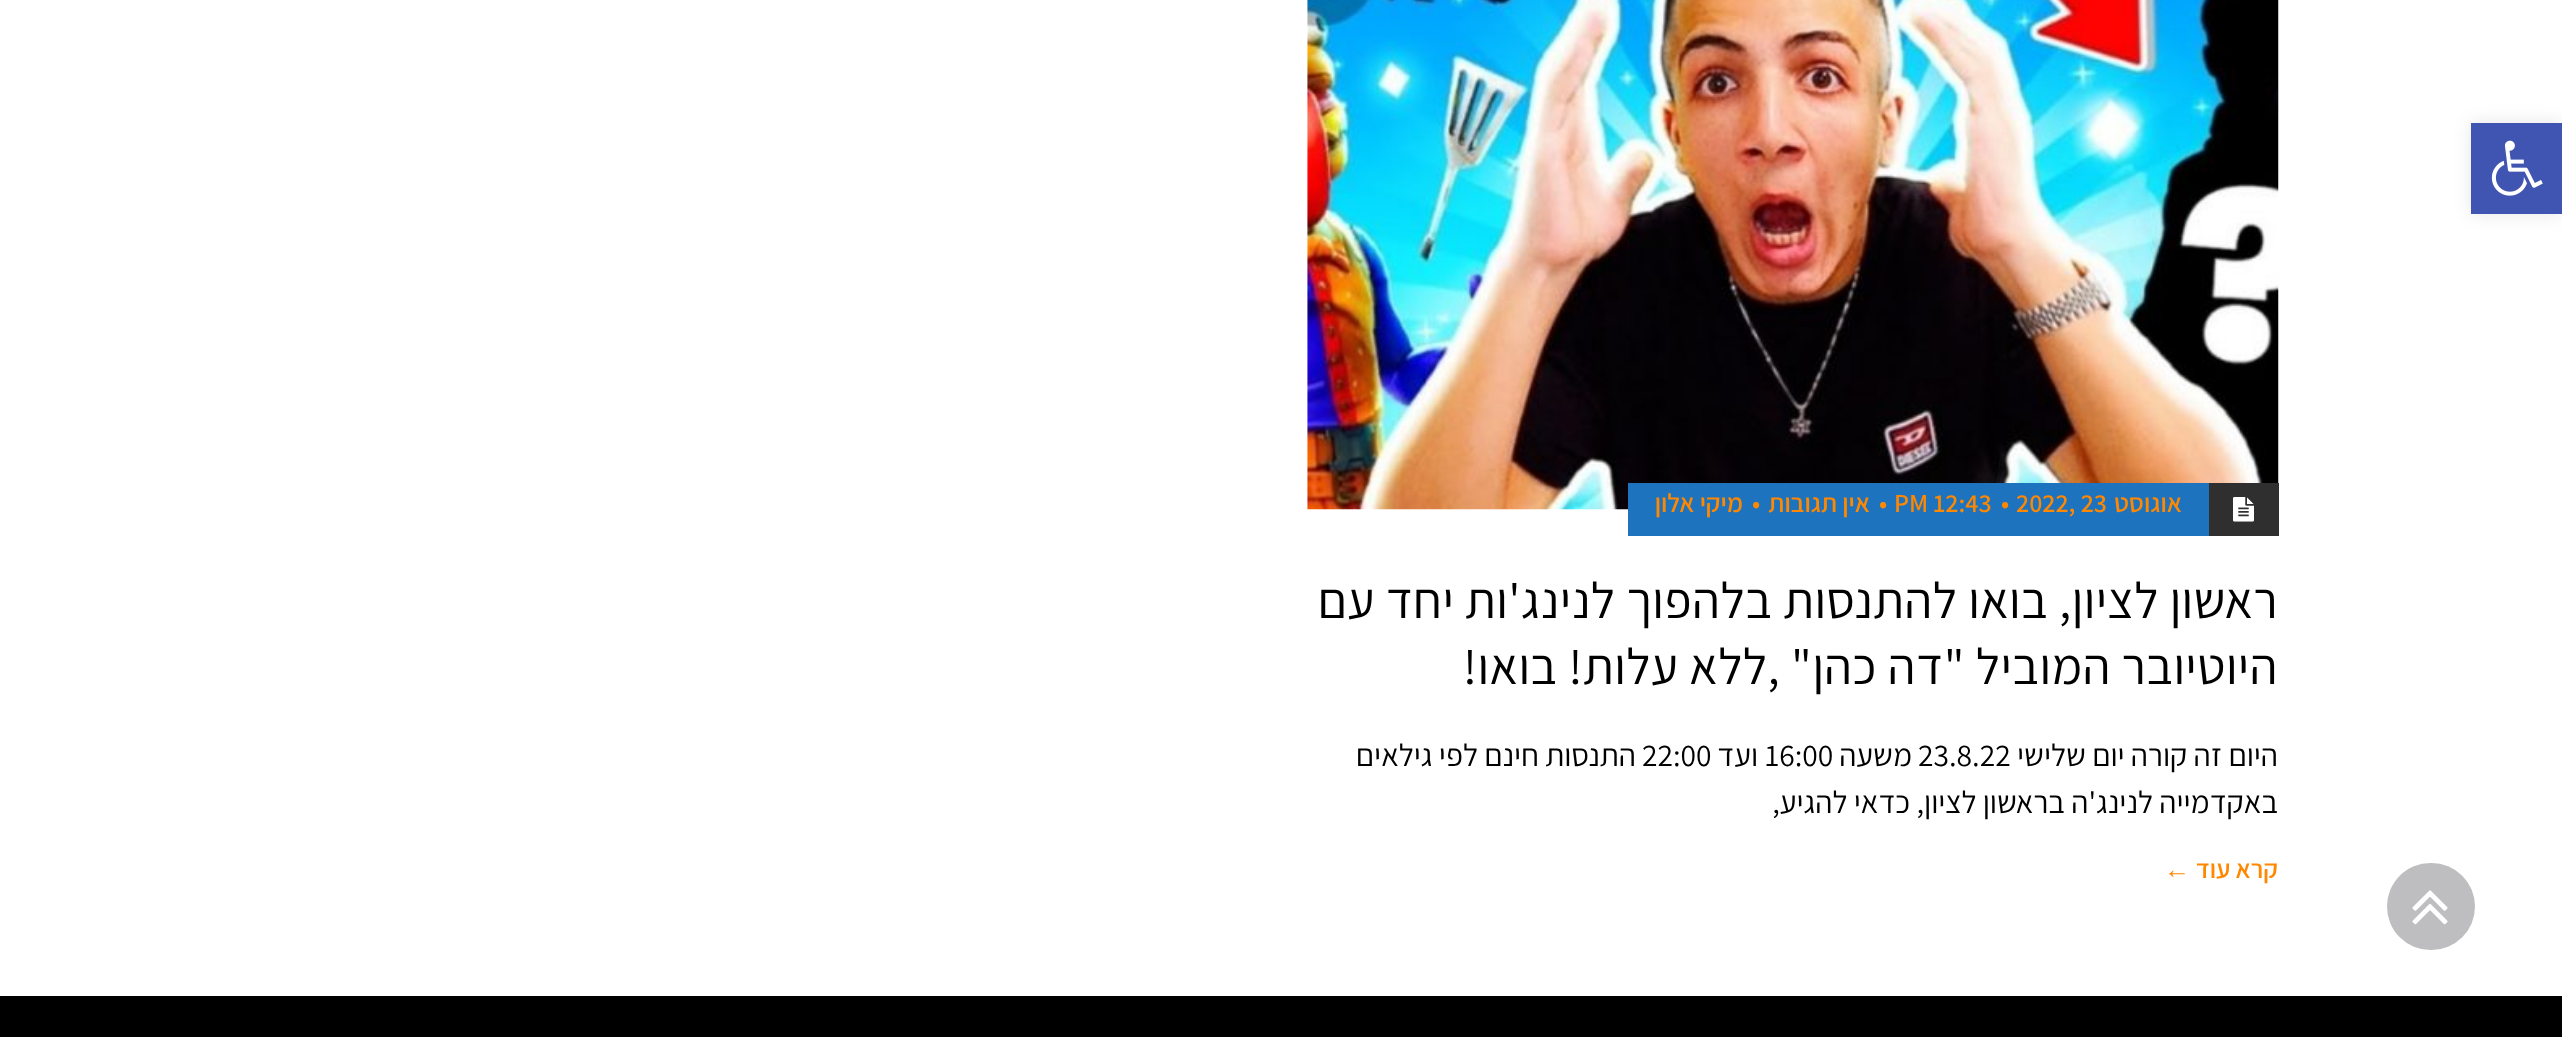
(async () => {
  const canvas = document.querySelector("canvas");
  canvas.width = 2562;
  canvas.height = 1037;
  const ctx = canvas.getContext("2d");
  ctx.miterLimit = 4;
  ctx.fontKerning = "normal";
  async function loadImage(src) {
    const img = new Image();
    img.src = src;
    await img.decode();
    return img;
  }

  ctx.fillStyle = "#ffffff";
  ctx.fillRect(0, 0, 2562, 1037);
  ctx.fillStyle = "rgba(0, 0, 0, 0.1)";
  ctx.filter = "blur(9px)";
  ctx.beginPath();
  ctx.rect(2471, 123, 91, 91);
  ctx.fill();
  ctx.filter = "none";
  ctx.fillStyle = "#4054b2";
  ctx.fillRect(2471, 123, 91, 91);
  ctx.drawImage(await loadImage("img/1.png"), 2491, 140, 52, 56);
  ctx.drawImage(await loadImage("img/2.png"), 1307, 0, 972, 510);
  ctx.fillStyle = "#1e73be";
  ctx.fillRect(1628, 483, 581, 53);
  ctx.fillStyle = "#2f2f2f";
  ctx.fillRect(2209, 483, 70, 53);
  ctx.drawImage(await loadImage("img/3.png"), 2233, 497, 21, 25);
  ctx.fillStyle = "#000000";
  ctx.fillRect(0, 996, 2562, 41);
  ctx.fillStyle = "#bebec1";
  ctx.beginPath();
  ctx.roundRect(2387, 863, 88, 87, 43.5);
  ctx.fill();
  ctx.drawImage(await loadImage("img/4.png"), 2412, 890, 36, 35);
  ctx.direction = "rtl";
  ctx.font = "600 26px Assistant";
  ctx.fillStyle = "#ff8800";
  ctx.fillText("אוגוסט", 2182, 512);
  ctx.direction = "ltr";
  for (const [text, x, y] of [
    ["2022, 23", 2016, 512],
    ["•", 2001, 512],
    ["PM 12:43", 1894, 512],
    ["•", 1879, 512],
  ]) {
    ctx.fillText(text, x, y);
  }
  ctx.direction = "rtl";
  ctx.fillText("אין תגובות", 1870, 512);
  ctx.direction = "ltr";
  ctx.fillText("•", 1752, 512);
  ctx.direction = "rtl";
  ctx.fillText("מיקי אלון", 1743, 512);
  ctx.letterSpacing = "0.55px";
  ctx.font = "50.75px Assistant";
  ctx.fillStyle = "#000000";
  ctx.fillText("ראשון לציון, בואו להתנסות בלהפוך לנינג'ות יחד עם", 2278, 618);
  ctx.fillText("היוטיובר המוביל \"דה כהן\" ,ללא עלות! בואו!", 2278, 684);
  ctx.letterSpacing = "0px";
  ctx.font = "31.5px Assistant";
  ctx.fillText("היום זה קורה יום שלישי", 2278, 766);
  ctx.direction = "ltr";
  ctx.fillText("23.8.22", 1918, 766);
  ctx.direction = "rtl";
  ctx.fillText("משעה", 1912, 766);
  ctx.direction = "ltr";
  ctx.fillText("16:00", 1765, 766);
  ctx.direction = "rtl";
  ctx.fillText("ועד", 1758, 766);
  ctx.direction = "ltr";
  ctx.fillText("22:00", 1642, 766);
  ctx.direction = "rtl";
  ctx.fillText("התנסות חינם לפי גילאים", 1636, 766);
  ctx.fillText("באקדמייה לנינג'ה בראשון לציון, כדאי להגיע,", 2278, 813);
  ctx.font = "600 26px Assistant";
  ctx.fillStyle = "#ff8800";
  ctx.fillText("קרא עוד", 2278, 878);
  ctx.font = "bold 26px Liberation Sans";
  ctx.fillText("←", 2190, 878);
})();
